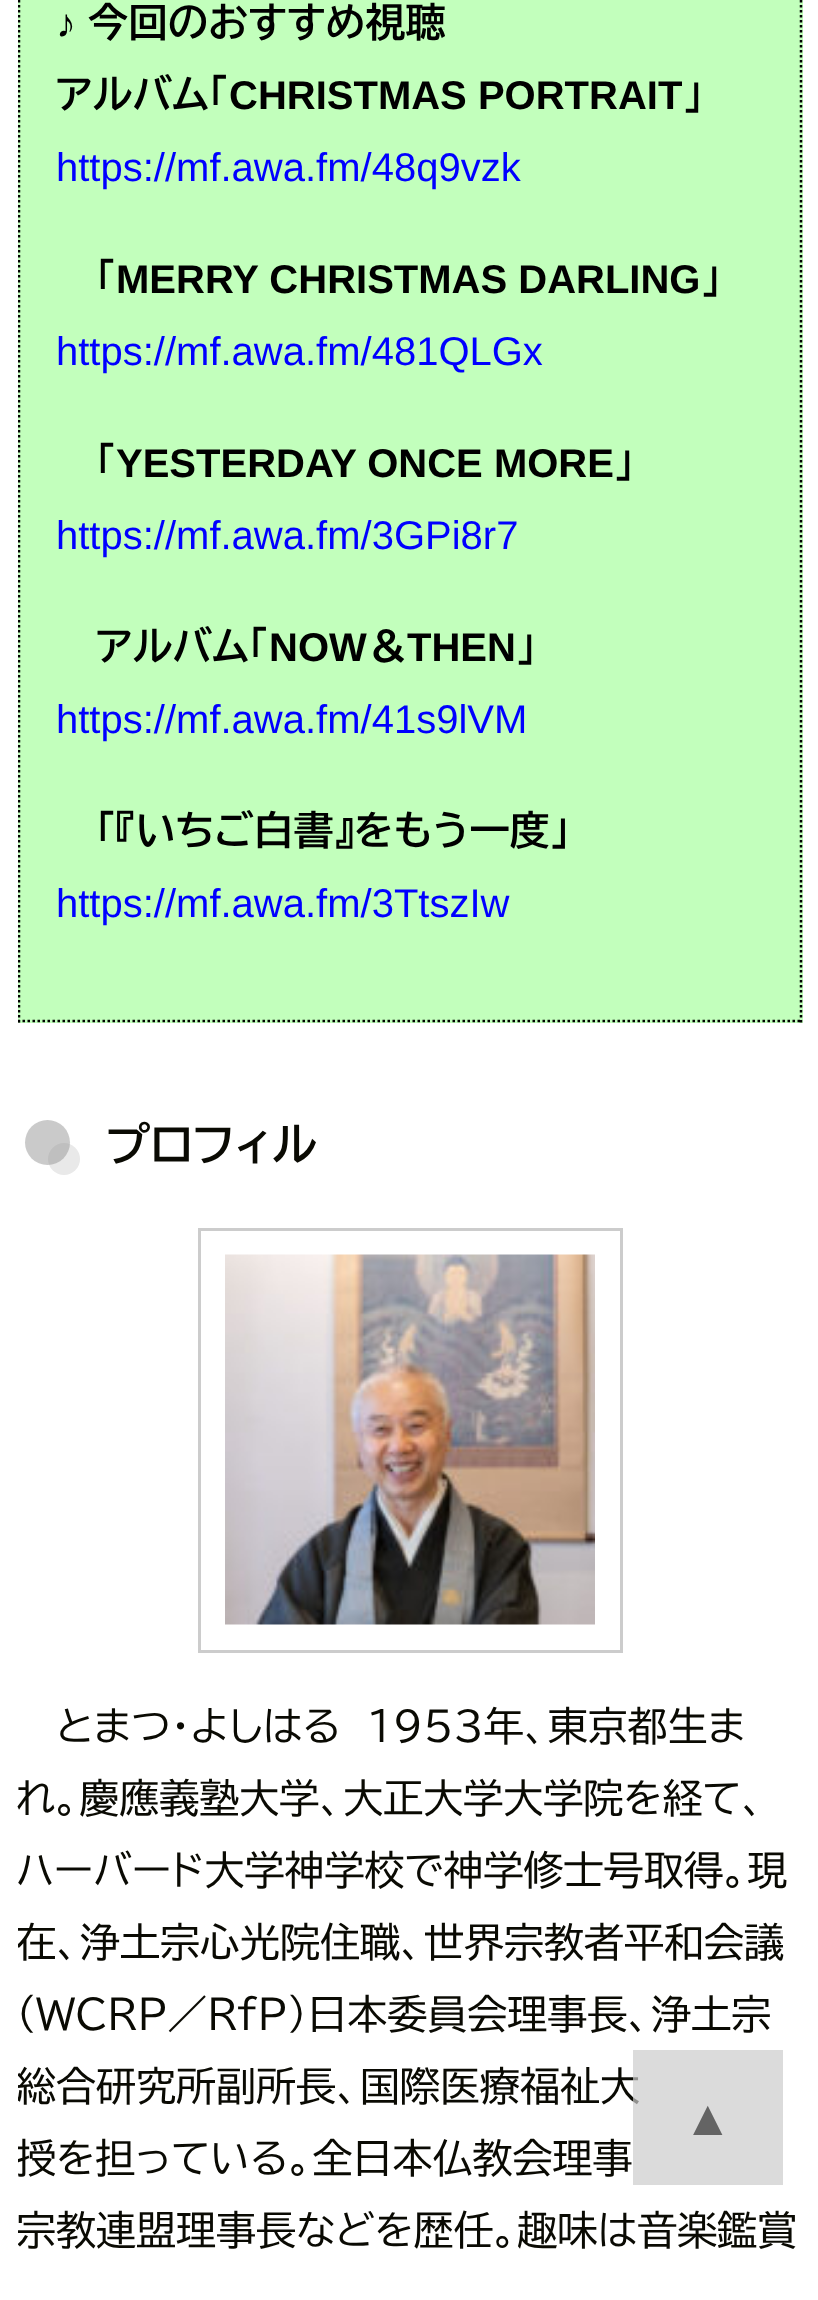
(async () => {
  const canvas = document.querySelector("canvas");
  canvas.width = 818;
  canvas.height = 2300;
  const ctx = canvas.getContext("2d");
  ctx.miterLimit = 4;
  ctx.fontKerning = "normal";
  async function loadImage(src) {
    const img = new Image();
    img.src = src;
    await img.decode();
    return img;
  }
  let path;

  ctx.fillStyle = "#ffffff";
  ctx.fillRect(0, 0, 818, 2300);
  ctx.fillStyle = "#c2ffbc";
  ctx.fillRect(18, 0, 785, 1023);
  path = new Path2D("M801-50V1022.5");
  ctx.strokeStyle = "#000000";
  ctx.lineWidth = 2.5;
  ctx.setLineDash([2.5, 2.5]);
  ctx.stroke(path);
  ctx.save();
  ctx.beginPath();
  ctx.rect(18, 0, 785, 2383);
  ctx.clip();
  path = new Path2D("M17.5 1021H802.5");
  ctx.stroke(path);
  path = new Path2D("M19-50V1022.5");
  ctx.stroke(path);
  ctx.restore();
  ctx.fillStyle = "#e9e9e9";
  ctx.beginPath();
  ctx.arc(64, 1159, 16, 0, Math.PI * 2);
  ctx.fill();
  ctx.fillStyle = "rgba(150, 150, 150, 0.5)";
  ctx.beginPath();
  ctx.arc(47.5, 1142.5, 22.5, 0, Math.PI * 2);
  ctx.fill();
  ctx.strokeStyle = "#cccccc";
  ctx.lineWidth = 3;
  ctx.setLineDash([]);
  ctx.strokeRect(199.5, 1229.5, 422, 422);
  ctx.drawImage(await loadImage("img/1.png"), 225, 1254, 370, 371);
  ctx.font = "bold 40px Liberation Sans";
  ctx.fillStyle = "#000000";
  ctx.fillText("♪", 56, 37);
  ctx.font = "bold 40px BIZ UDPGothic";
  ctx.fillText("今回のおすすめ視聴", 88, 37);
  ctx.fillText("アルバム「", 56, 109);
  ctx.font = "bold 40px Liberation Sans";
  ctx.fillText("CHRISTMAS PORTRAIT", 229, 109);
  ctx.font = "bold 40px BIZ UDPGothic";
  ctx.fillText("」", 683, 109);
  ctx.font = "40px Liberation Sans";
  ctx.fillStyle = "#0000ff";
  ctx.fillText("https://mf.awa.fm/48q9vzk", 56, 181);
  ctx.font = "bold 40px BIZ UDPGothic";
  ctx.fillStyle = "#000000";
  ctx.fillText("「", 96, 293);
  ctx.font = "bold 40px Liberation Sans";
  ctx.fillText("MERRY CHRISTMAS DARLING", 116, 293);
  ctx.font = "bold 40px BIZ UDPGothic";
  ctx.fillText("」", 701, 293);
  ctx.font = "40px Liberation Sans";
  ctx.fillStyle = "#0000ff";
  ctx.fillText("https://mf.awa.fm/481QLGx", 56, 365);
  ctx.font = "bold 40px BIZ UDPGothic";
  ctx.fillStyle = "#000000";
  ctx.fillText("「", 96, 477);
  ctx.font = "bold 40px Liberation Sans";
  ctx.fillText("YESTERDAY ONCE MORE", 116, 477);
  ctx.font = "bold 40px BIZ UDPGothic";
  ctx.fillText("」", 614, 477);
  ctx.font = "40px Liberation Sans";
  ctx.fillStyle = "#0000ff";
  ctx.fillText("https://mf.awa.fm/3GPi8r7", 56, 549);
  ctx.font = "bold 40px BIZ UDPGothic";
  ctx.fillStyle = "#000000";
  ctx.fillText("アルバム「", 96, 661);
  ctx.font = "bold 40px Liberation Sans";
  ctx.fillText("NOW", 269, 661);
  ctx.font = "bold 40px BIZ UDPGothic";
  ctx.fillText("＆", 367, 661);
  ctx.font = "bold 40px Liberation Sans";
  ctx.fillText("THEN", 407, 661);
  ctx.font = "bold 40px BIZ UDPGothic";
  ctx.fillText("」", 516, 661);
  ctx.font = "40px Liberation Sans";
  ctx.fillStyle = "#0000ff";
  ctx.fillText("https://mf.awa.fm/41s9lVM", 56, 733);
  ctx.font = "bold 40px BIZ UDPGothic";
  ctx.fillStyle = "#000000";
  ctx.fillText("「『いちご白書』をもう一度」", 96, 845);
  ctx.font = "40px Liberation Sans";
  ctx.fillStyle = "#0000ff";
  ctx.fillText("https://mf.awa.fm/3TtszIw", 56, 917);
  ctx.font = "bold 45px BIZ UDPGothic";
  ctx.fillStyle = "#0a0a03";
  ctx.fillText("プロフィル", 106, 1161);
  ctx.font = "40px BIZ UDPGothic";
  for (const [text, x, y] of [
    ["とまつ・よしはる　１９５３年、東京都生ま", 56, 1741],
    ["れ。慶應義塾大学、大正大学大学院を経て、", 16, 1813],
    ["ハーバード大学神学校で神学修士号取得。現", 16, 1885],
  ]) {
    ctx.fillText(text, x, y);
  }
  ctx.save();
  ctx.beginPath();
  ctx.rect(18, 0, 785, 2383);
  ctx.clip();
  ctx.fillText("在、浄土宗心光院住職、世界宗教者平和会議", 16, 1957);
  ctx.restore();
  ctx.fillText("（ＷＣＲＰ／ＲｆＰ）日本委員会理事長、浄土宗", 16, 2029);
  ctx.save();
  ctx.beginPath();
  ctx.rect(18, 0, 785, 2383);
  ctx.clip();
  for (const [text, x, y] of [
    ["総合研究所副所長、国際医療福祉大", 16, 2101],
    ["授を担っている。全日本仏教会理事", 16, 2173],
    ["宗教連盟理事長などを歴任。趣味は音楽鑑賞", 16, 2245],
  ]) {
    ctx.fillText(text, x, y);
  }
  ctx.restore();
  ctx.fillStyle = "rgba(204, 204, 204, 0.7)";
  ctx.fillRect(633, 2050, 150, 135);
  ctx.font = "50px Liberation Sans";
  ctx.fillStyle = "#646464";
  ctx.fillText("▲", 683, 2135);
})();
